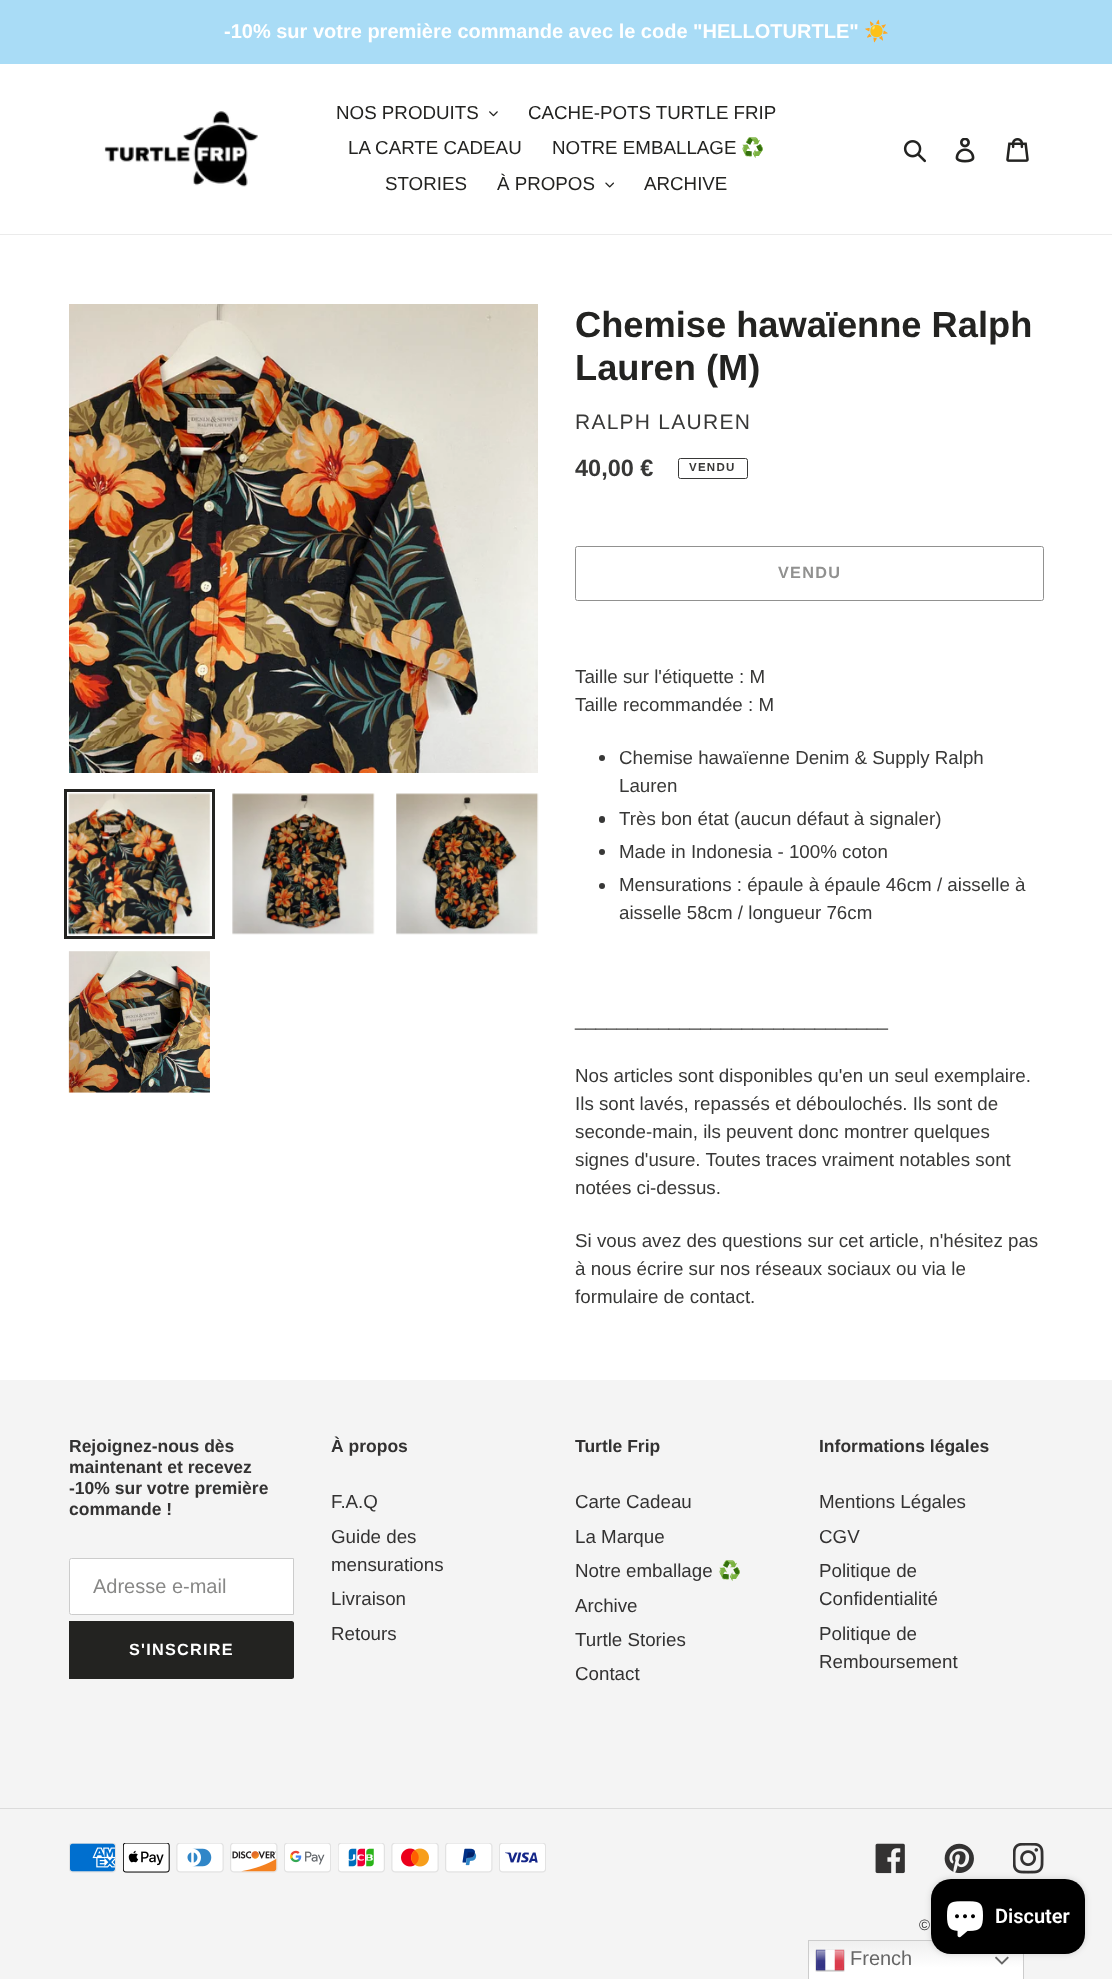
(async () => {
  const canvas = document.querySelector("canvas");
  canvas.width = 1112;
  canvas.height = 1979;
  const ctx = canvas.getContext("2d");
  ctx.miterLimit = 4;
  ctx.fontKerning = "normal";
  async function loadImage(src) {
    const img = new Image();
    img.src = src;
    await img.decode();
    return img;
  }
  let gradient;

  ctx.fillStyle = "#ffffff";
  ctx.fillRect(0, 0, 1112, 1979);
  ctx.fillStyle = "#a9dcf6";
  ctx.fillRect(0, 0, 1112, 64);
  ctx.fillStyle = "#ebebeb";
  ctx.fillRect(0, 234, 1112, 1);
  ctx.drawImage(await loadImage("img/1.png"), 104, 111, 154, 76);
  ctx.drawImage(await loadImage("img/2.png"), 489, 111, 9, 6);
  ctx.drawImage(await loadImage("img/3.png"), 605, 182, 9, 6);
  ctx.drawImage(await loadImage("img/4.png"), 903, 140, 23, 23);
  ctx.drawImage(await loadImage("img/5.png"), 955, 138, 20, 25);
  ctx.drawImage(await loadImage("img/6.png"), 1006, 138, 23, 24);
  ctx.drawImage(await loadImage("img/7.png"), 69, 304, 469, 469);
  ctx.strokeStyle = "#232321";
  ctx.lineWidth = 3;
  ctx.strokeRect(65.5, 790.5, 148, 147);
  ctx.drawImage(await loadImage("img/8.png"), 68, 793, 143, 142);
  ctx.drawImage(await loadImage("img/9.png"), 232, 793, 143, 142);
  ctx.drawImage(await loadImage("img/10.png"), 396, 793, 143, 142);
  ctx.drawImage(await loadImage("img/11.png"), 68, 951, 142, 142);
  ctx.beginPath();
  ctx.roundRect(678.5, 458.5, 69, 20, 2);
  ctx.strokeStyle = "#383837";
  ctx.lineWidth = 1;
  ctx.stroke();
  ctx.beginPath();
  ctx.roundRect(575.5, 546.5, 468, 54, 2);
  ctx.strokeStyle = "#919190";
  ctx.stroke();
  ctx.fillStyle = "#383837";
  ctx.beginPath();
  ctx.arc(602, 758, 3, 0, Math.PI * 2);
  ctx.fill();
  ctx.beginPath();
  ctx.roundRect(599, 816, 6, 7, 3);
  ctx.fill();
  ctx.beginPath();
  ctx.arc(602, 852, 3, 0, Math.PI * 2);
  ctx.fill();
  ctx.beginPath();
  ctx.arc(602, 886, 3, 0, Math.PI * 2);
  ctx.fill();
  ctx.fillStyle = "#f4f4f4";
  ctx.fillRect(0, 1380, 1112, 599);
  ctx.fillStyle = "#ffffff";
  ctx.beginPath();
  ctx.roundRect(69.5, 1558.5, 224, 56, [2, 0, 0, 2]);
  ctx.fill();
  ctx.strokeStyle = "#cccccc";
  ctx.stroke();
  ctx.fillStyle = "#232321";
  ctx.beginPath();
  ctx.roundRect(69, 1621, 225, 58, [0, 2.5, 2.5, 0]);
  ctx.fill();
  ctx.fillStyle = "#dbdbdb";
  ctx.fillRect(0, 1808, 1112, 1);
  ctx.drawImage(await loadImage("img/12.png"), 69, 1843, 47, 30);
  ctx.drawImage(await loadImage("img/13.png"), 123, 1843, 47, 30);
  ctx.drawImage(await loadImage("img/14.png"), 176, 1843, 48, 30);
  ctx.drawImage(await loadImage("img/15.png"), 230, 1843, 48, 30);
  ctx.drawImage(await loadImage("img/16.png"), 284, 1843, 47, 30);
  ctx.drawImage(await loadImage("img/17.png"), 338, 1843, 47, 30);
  ctx.drawImage(await loadImage("img/18.png"), 391, 1843, 48, 30);
  ctx.drawImage(await loadImage("img/19.png"), 445, 1843, 48, 30);
  ctx.drawImage(await loadImage("img/20.png"), 499, 1843, 47, 30);
  ctx.drawImage(await loadImage("img/21.png"), 875, 1843, 30, 31);
  ctx.drawImage(await loadImage("img/22.png"), 944, 1843, 30, 30);
  ctx.drawImage(await loadImage("img/23.png"), 1013, 1843, 31, 31);
  gradient = ctx.createLinearGradient(916, 1940, 916, 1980);
  gradient.addColorStop(0, "#efefef");
  gradient.addColorStop(0.7, "#ffffff");
  ctx.fillStyle = gradient;
  ctx.fillRect(809, 1941, 214, 38);
  ctx.strokeRect(808.5, 1940.5, 215, 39);
  ctx.drawImage(await loadImage("img/26.png"), 995, 1956, 14, 9);
  ctx.fillStyle = "rgba(0, 0, 0, 0.15)";
  ctx.filter = "blur(3px)";
  ctx.beginPath();
  ctx.roundRect(931, 1879, 154, 75, 20);
  ctx.fill();
  ctx.filter = "none";
  ctx.fillStyle = "#000000";
  ctx.beginPath();
  ctx.roundRect(931, 1879, 154, 75, 20);
  ctx.fill();
  ctx.drawImage(await loadImage("img/24.png"), 947, 1901, 36, 37);
  ctx.drawImage(await loadImage("img/25.png"), 815, 1949, 30, 23);
  ctx.font = "bold 20px Liberation Sans";
  ctx.fillStyle = "#ffffff";
  ctx.fillText("-10% sur votre première commande avec le code \"HELLOTURTLE\"", 224, 38);
  ctx.font = "bold 20px Noto Color Emoji";
  ctx.fillText("☀️", 864, 38);
  ctx.font = "18.75px Liberation Sans";
  ctx.fillStyle = "#232321";
  for (const [text, x, y] of [
    ["NOS PRODUITS", 336, 119],
    ["CACHE-POTS TURTLE FRIP", 528, 119],
    ["LA CARTE CADEAU", 348, 154],
    ["NOTRE EMBALLAGE", 552, 154],
  ]) {
    ctx.fillText(text, x, y);
  }
  ctx.font = "18.75px Noto Color Emoji";
  ctx.fillText("♻️", 741, 154);
  ctx.font = "18.75px Liberation Sans";
  for (const [text, x, y] of [
    ["STORIES", 385, 190],
    ["À PROPOS", 497, 190],
    ["ARCHIVE", 644, 190],
  ]) {
    ctx.fillText(text, x, y);
  }
  ctx.font = "bold 36.25px Liberation Sans";
  ctx.fillText("Chemise hawaïenne Ralph", 575, 337);
  ctx.fillText("Lauren (M)", 575, 380);
  ctx.letterSpacing = "1.25px";
  ctx.font = "21px Liberation Sans";
  ctx.fillStyle = "#383837";
  ctx.fillText("RALPH LAUREN", 575, 429);
  ctx.letterSpacing = "0px";
  ctx.font = "bold 23.5px Liberation Sans";
  ctx.fillText("40,00 €", 575, 476);
  ctx.letterSpacing = "1.25px";
  ctx.font = "bold 11.5px Liberation Sans";
  ctx.fillText("VENDU", 689, 471);
  ctx.font = "bold 16.25px Liberation Sans";
  ctx.fillStyle = "#919190";
  ctx.fillText("VENDU", 778, 578);
  ctx.letterSpacing = "0px";
  ctx.font = "18.75px Liberation Sans";
  ctx.fillStyle = "#383837";
  for (const [text, x, y] of [
    ["Taille sur l'étiquette : M", 575, 683],
    ["Taille recommandée : M", 575, 711],
    ["Chemise hawaïenne Denim & Supply Ralph", 619, 764],
    ["Lauren", 619, 792],
    ["Très bon état (aucun défaut à signaler)", 619, 825],
    ["Made in Indonesia - 100% coton", 619, 858],
    ["Mensurations : épaule à épaule 46cm / aisselle à", 619, 891],
    ["aisselle 58cm / longueur 76cm", 619, 919],
    ["______________________________", 575, 1026],
    ["Nos articles sont disponibles qu'en un seul exemplaire.", 575, 1082],
    ["Ils sont lavés, repassés et déboulochés. Ils sont de", 575, 1110],
    ["seconde-main, ils peuvent donc montrer quelques", 575, 1138],
    ["signes d'usure. Toutes traces vraiment notables sont", 575, 1166],
    ["notées ci-dessus.", 575, 1194],
    ["Si vous avez des questions sur cet article, n'hésitez pas", 575, 1247],
    ["à nous écrire sur nos réseaux sociaux ou via le", 575, 1275],
    ["formulaire de contact.", 575, 1303],
  ]) {
    ctx.fillText(text, x, y);
  }
  ctx.font = "bold 17.5px Liberation Sans";
  ctx.fillStyle = "#333232";
  for (const [text, x, y] of [
    ["Rejoignez-nous dès", 69, 1452],
    ["maintenant et recevez", 69, 1473],
    ["-10% sur votre première", 69, 1494],
    ["commande !", 69, 1515],
  ]) {
    ctx.fillText(text, x, y);
  }
  ctx.font = "20px Liberation Sans";
  ctx.fillStyle = "#888887";
  ctx.fillText("Adresse e-mail", 93, 1593);
  ctx.letterSpacing = "1.25px";
  ctx.font = "bold 16.25px Liberation Sans";
  ctx.fillStyle = "#ffffff";
  ctx.fillText("S'INSCRIRE", 129, 1655);
  ctx.letterSpacing = "0px";
  ctx.font = "bold 17.5px Liberation Sans";
  ctx.fillStyle = "#333232";
  ctx.fillText("À propos", 331, 1452);
  ctx.font = "18.75px Liberation Sans";
  for (const [text, x, y] of [
    ["F.A.Q", 331, 1508],
    ["Guide des", 331, 1543],
    ["mensurations", 331, 1571],
    ["Livraison", 331, 1605],
    ["Retours", 331, 1640],
  ]) {
    ctx.fillText(text, x, y);
  }
  ctx.font = "bold 17.5px Liberation Sans";
  ctx.fillText("Turtle Frip", 575, 1452);
  ctx.font = "18.75px Liberation Sans";
  for (const [text, x, y] of [
    ["Carte Cadeau", 575, 1508],
    ["La Marque", 575, 1543],
    ["Notre emballage", 575, 1577],
  ]) {
    ctx.fillText(text, x, y);
  }
  ctx.font = "18.75px Noto Color Emoji";
  ctx.fillText("♻️", 718, 1577);
  ctx.font = "18.75px Liberation Sans";
  for (const [text, x, y] of [
    ["Archive", 575, 1612],
    ["Turtle Stories", 575, 1646],
    ["Contact", 575, 1680],
  ]) {
    ctx.fillText(text, x, y);
  }
  ctx.font = "bold 17.5px Liberation Sans";
  ctx.fillText("Informations légales", 819, 1452);
  ctx.font = "18.75px Liberation Sans";
  for (const [text, x, y] of [
    ["Mentions Légales", 819, 1508],
    ["CGV", 819, 1543],
    ["Politique de", 819, 1577],
    ["Confidentialité", 819, 1605],
    ["Politique de", 819, 1640],
    ["Remboursement", 819, 1668],
  ]) {
    ctx.fillText(text, x, y);
  }
  ctx.font = "15px Liberation Sans";
  ctx.fillText("©", 919, 1930);
  ctx.font = "600 20px Roboto";
  ctx.fillStyle = "#ffffff";
  ctx.fillText("Discuter", 995, 1923);
  ctx.font = "20px Liberation Sans";
  ctx.fillStyle = "#666666";
  ctx.fillText("French", 850, 1965);
})();
